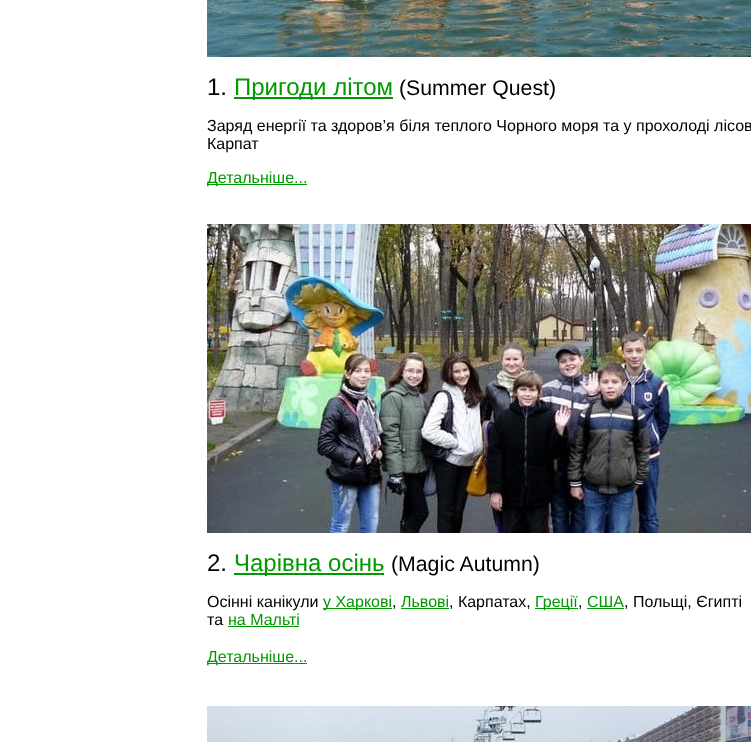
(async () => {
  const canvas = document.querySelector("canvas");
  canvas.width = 751;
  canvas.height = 742;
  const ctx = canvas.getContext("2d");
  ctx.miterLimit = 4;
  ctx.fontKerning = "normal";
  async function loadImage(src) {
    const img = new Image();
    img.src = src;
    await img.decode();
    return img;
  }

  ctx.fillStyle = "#ffffff";
  ctx.fillRect(0, 0, 751, 742);
  ctx.drawImage(await loadImage("img/1.png"), 207, 0, 544, 57);
  ctx.fillStyle = "#009900";
  ctx.fillRect(234, 97, 159, 2);
  ctx.fillRect(207, 184, 100, 1);
  ctx.drawImage(await loadImage("img/2.png"), 207, 224, 544, 309);
  for (const [x, y, w, h, color] of [
    [234, 573, 150, 2, "#009900"],
    [323, 608, 69, 1, "#009900"],
    [401, 608, 48, 1, "#009900"],
    [535, 608, 43, 1, "#009900"],
    [587, 608, 37, 1, "#009900"],
    [228, 626, 71, 1, "#009900"],
    [207, 663, 100, 1, "#009900"],
  ]) {
    ctx.fillStyle = color;
    ctx.fillRect(x, y, w, h);
  }
  ctx.drawImage(await loadImage("img/3.png"), 207, 706, 544, 36);
  ctx.font = "24px Liberation Sans";
  ctx.fillStyle = "#000000";
  ctx.fillText("1.", 207, 95);
  ctx.fillStyle = "#009900";
  ctx.fillText("Пригоди літом", 234, 95);
  ctx.font = "21.25px Liberation Sans";
  ctx.fillStyle = "#000000";
  ctx.fillText("(Summer Quest)", 399, 95);
  ctx.font = "16px Liberation Sans";
  ctx.fillText("Заряд енергії та здоров’я біля теплого Чорного моря та у прохолоді лісов", 207, 131);
  ctx.fillText("Карпат", 207, 149);
  ctx.fillStyle = "#009900";
  ctx.fillText("Детальніше...", 207, 183);
  ctx.font = "24px Liberation Sans";
  ctx.fillStyle = "#000000";
  ctx.fillText("2.", 207, 571);
  ctx.fillStyle = "#009900";
  ctx.fillText("Чарівна осінь", 234, 571);
  ctx.font = "21.25px Liberation Sans";
  ctx.fillStyle = "#000000";
  ctx.fillText("(Magic Autumn)", 391, 571);
  ctx.font = "16px Liberation Sans";
  ctx.fillText("Осінні канікули", 207, 607);
  ctx.fillStyle = "#009900";
  ctx.fillText("у Харкові", 323, 607);
  ctx.fillStyle = "#000000";
  ctx.fillText(",", 392, 607);
  ctx.fillStyle = "#009900";
  ctx.fillText("Львові", 401, 607);
  ctx.fillStyle = "#000000";
  ctx.fillText(", Карпатах,", 449, 607);
  ctx.fillStyle = "#009900";
  ctx.fillText("Греції", 535, 607);
  ctx.fillStyle = "#000000";
  ctx.fillText(",", 578, 607);
  ctx.fillStyle = "#009900";
  ctx.fillText("США", 587, 607);
  ctx.fillStyle = "#000000";
  ctx.fillText(", Польщі, Єгипті", 624, 607);
  ctx.fillText("та", 207, 625);
  ctx.fillStyle = "#009900";
  ctx.fillText("на Мальті", 228, 625);
  ctx.fillText("Детальніше...", 207, 662);
})();
